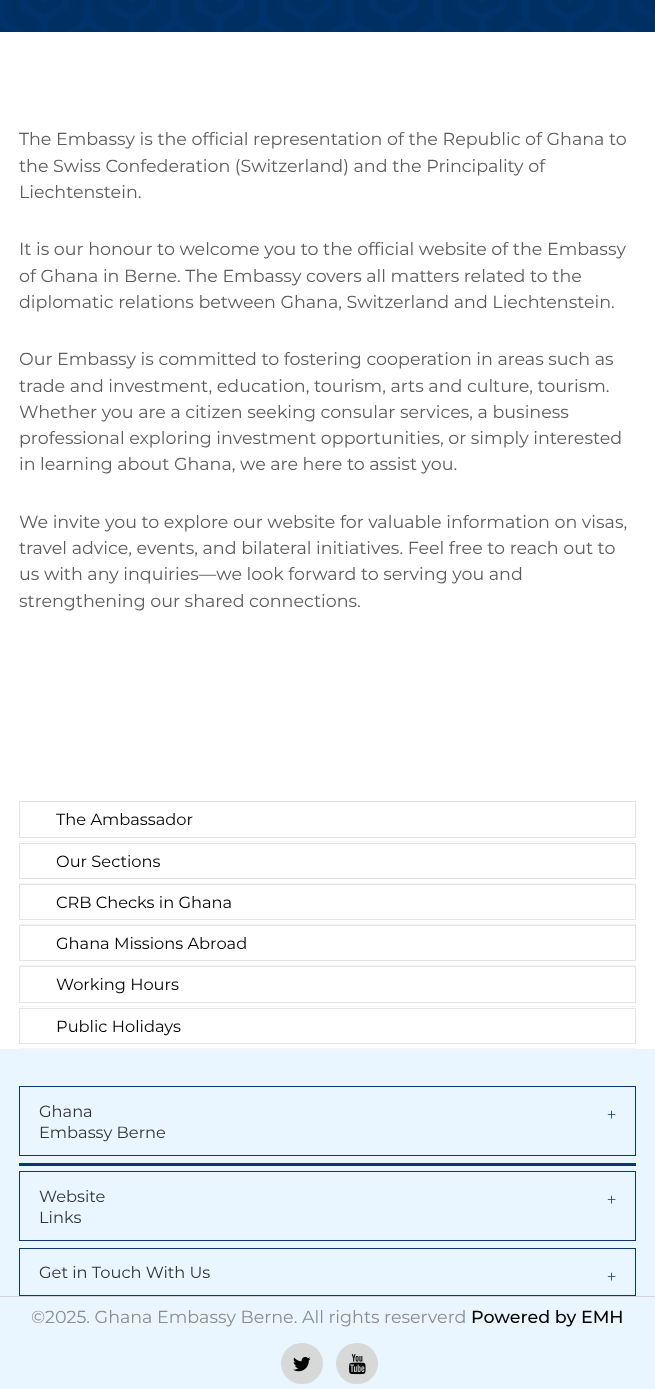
(async () => {
  const canvas = document.querySelector("canvas");
  canvas.width = 655;
  canvas.height = 1389;
  const ctx = canvas.getContext("2d");
  ctx.miterLimit = 4;
  ctx.fontKerning = "normal";
  async function loadImage(src) {
    const img = new Image();
    img.src = src;
    await img.decode();
    return img;
  }

  ctx.fillStyle = "#ffffff";
  ctx.fillRect(0, 0, 655, 1389);
  ctx.drawImage(await loadImage("img/1.png"), 0, 0, 655, 32);
  ctx.fillStyle = "#f5f5f5";
  ctx.fillRect(19, 841, 617, 1);
  ctx.strokeStyle = "#e3e3e3";
  ctx.strokeRect(19.5, 801.5, 616, 36);
  ctx.fillRect(19, 883, 617, 1);
  ctx.strokeRect(19.5, 843.5, 616, 35);
  ctx.fillRect(19, 924, 617, 1);
  ctx.strokeRect(19.5, 884.5, 616, 35);
  ctx.fillRect(19, 965, 617, 1);
  ctx.strokeRect(19.5, 925.5, 616, 35);
  ctx.fillRect(19, 1006, 617, 1);
  ctx.strokeRect(19.5, 966.5, 616, 36);
  ctx.fillRect(19, 1048, 617, 1);
  ctx.strokeRect(19.5, 1008.5, 616, 35);
  ctx.fillStyle = "#e9f6ff";
  ctx.fillRect(0, 1049, 655, 340);
  ctx.strokeStyle = "#0a3772";
  ctx.strokeRect(19.5, 1086.5, 616, 69);
  ctx.fillStyle = "#0a3772";
  ctx.fillRect(19, 1163, 617, 3);
  ctx.strokeRect(19.5, 1171.5, 616, 69);
  ctx.strokeRect(19.5, 1248.5, 616, 47);
  ctx.fillStyle = "#d5d5d5";
  ctx.fillRect(0, 1296, 655, 1);
  ctx.fillStyle = "#d7d8d8";
  ctx.beginPath();
  ctx.roundRect(281, 1343, 42, 41, 20.5);
  ctx.fill();
  ctx.drawImage(await loadImage("img/2.png"), 293, 1357, 18, 15);
  ctx.beginPath();
  ctx.roundRect(336, 1343, 42, 41, 20.5);
  ctx.fill();
  ctx.drawImage(await loadImage("img/3.png"), 349, 1354, 17, 21);
  ctx.font = "17.5px Montserrat";
  ctx.fillStyle = "#5e5b5b";
  for (const [text, x, y] of [
    ["The Embassy is the official representation of the Republic of Ghana to", 19, 145],
    ["the Swiss Confederation (Switzerland) and the Principality of", 19, 172],
    ["Liechtenstein.", 19, 198],
    ["It is our honour to welcome you to the official website of the Embassy", 19, 255],
    ["of Ghana in Berne. The Embassy covers all matters related to the", 19, 282],
    ["diplomatic relations between Ghana, Switzerland and Liechtenstein.", 19, 308],
    ["Our Embassy is committed to fostering cooperation in areas such as", 19, 365],
    ["trade and investment, education, tourism, arts and culture, tourism.", 19, 392],
    ["Whether you are a citizen seeking consular services, a business", 19, 418],
    ["professional exploring investment opportunities, or simply interested", 19, 444],
    ["in learning about Ghana, we are here to assist you.", 19, 470],
    ["We invite you to explore our website for valuable information on visas,", 19, 528],
    ["travel advice, events, and bilateral initiatives. Feel free to reach out to", 19, 554],
    ["us with any inquiries—we look forward to serving you and", 19, 580],
    ["strengthening our shared connections.", 19, 607],
  ]) {
    ctx.fillText(text, x, y);
  }
  ctx.font = "16.25px Montserrat";
  ctx.fillStyle = "#000000";
  for (const [text, x, y] of [
    ["The Ambassador", 56, 825],
    ["Our Sections", 56, 867],
    ["CRB Checks in Ghana", 56, 908],
    ["Ghana Missions Abroad", 56, 949],
    ["Working Hours", 56, 990],
    ["Public Holidays", 56, 1032],
  ]) {
    ctx.fillText(text, x, y);
  }
  ctx.fillStyle = "#333333";
  ctx.fillText("Ghana", 39, 1117);
  ctx.font = "16.25px Liberation Serif";
  ctx.fillStyle = "#0a3772";
  ctx.fillText("+", 607, 1120);
  ctx.font = "16.25px Montserrat";
  ctx.fillStyle = "#333333";
  ctx.fillText("Embassy Berne", 39, 1138);
  ctx.fillText("Website", 39, 1202);
  ctx.font = "16.25px Liberation Serif";
  ctx.fillStyle = "#0a3772";
  ctx.fillText("+", 607, 1205);
  ctx.font = "16.25px Montserrat";
  ctx.fillStyle = "#333333";
  ctx.fillText("Links", 39, 1223);
  ctx.fillText("Get in Touch With Us", 39, 1278);
  ctx.font = "16.25px Liberation Serif";
  ctx.fillStyle = "#0a3772";
  ctx.fillText("+", 607, 1282);
  ctx.font = "17.5px Montserrat";
  ctx.fillStyle = "#8c8c8c";
  ctx.fillText("©2025. Ghana Embassy Berne. All rights reserverd", 31, 1323);
  ctx.font = "500 17.5px Montserrat";
  ctx.fillStyle = "#000000";
  ctx.fillText("Powered by EMH", 471, 1323);
})();
